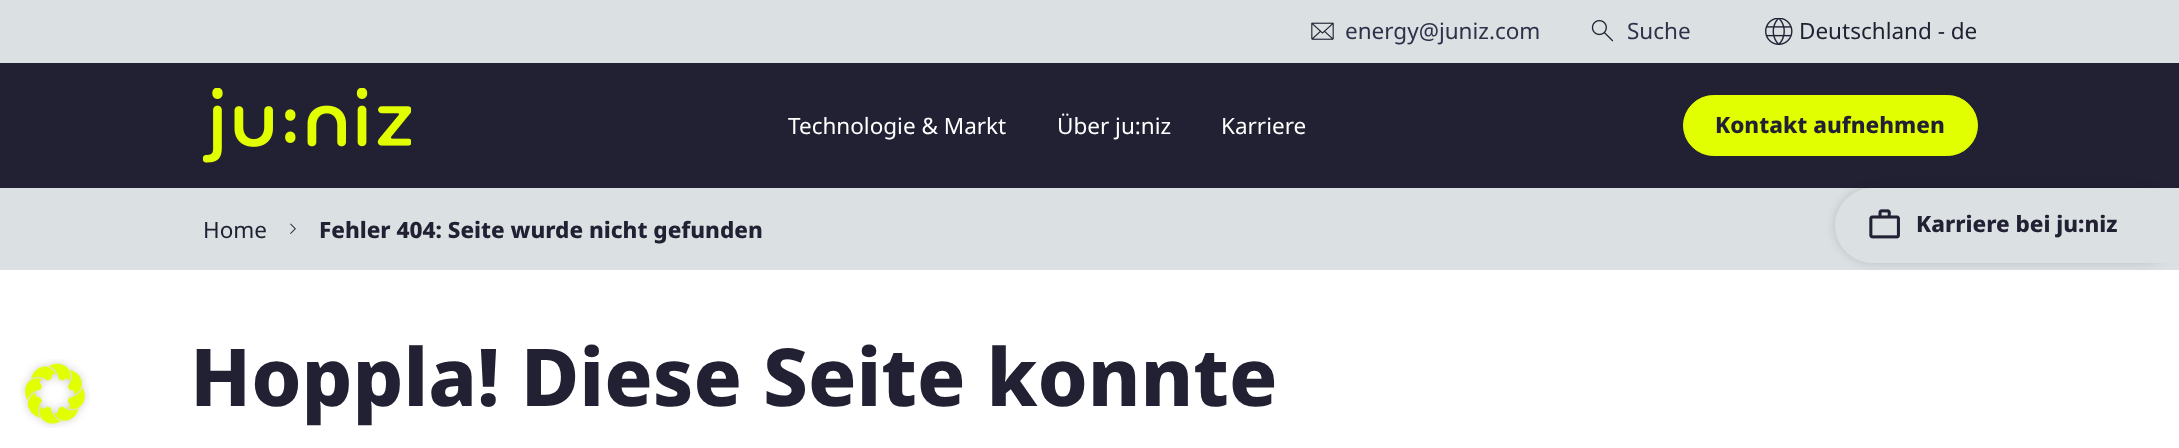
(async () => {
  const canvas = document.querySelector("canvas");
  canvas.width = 2179;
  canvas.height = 448;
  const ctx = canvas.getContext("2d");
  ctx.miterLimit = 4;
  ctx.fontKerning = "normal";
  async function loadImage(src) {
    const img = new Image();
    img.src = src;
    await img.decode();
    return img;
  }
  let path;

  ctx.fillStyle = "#ffffff";
  ctx.fillRect(0, 0, 2179, 448);
  ctx.fillStyle = "#dbe1e3";
  ctx.fillRect(0, 0, 2179, 63);
  ctx.drawImage(await loadImage("img/1.png"), 1311, 22, 23, 18);
  ctx.drawImage(await loadImage("img/2.png"), 1591, 20, 23, 22);
  ctx.drawImage(await loadImage("img/3.png"), 1765, 18, 28, 27);
  ctx.fillStyle = "#212133";
  ctx.fillRect(0, 63, 2179, 125);
  ctx.drawImage(await loadImage("img/4.png"), 203, 88, 208, 75);
  ctx.fillStyle = "#e1ff00";
  ctx.beginPath();
  ctx.roundRect(1683.5, 95.5, 294, 60, 30);
  ctx.fill();
  ctx.strokeStyle = "#e1ff00";
  ctx.stroke();
  ctx.drawImage(await loadImage("img/5.png"), 20, 359, 70, 69);
  ctx.fillStyle = "#dbe1e3";
  ctx.fillRect(0, 188, 2179, 82);
  ctx.drawImage(await loadImage("img/6.png"), 290, 223, 6, 11);
  ctx.fillStyle = "rgba(0, 0, 0, 0.15)";
  ctx.filter = "blur(5px)";
  ctx.beginPath();
  ctx.roundRect(1835, 188, 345, 75, 37.5);
  ctx.fill();
  ctx.filter = "none";
  ctx.fillStyle = "#dbe1e3";
  path = new Path2D("M1872.5 188H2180V263H1872.5C1852 263 1835 246 1835 225.5C1835 205 1852 188 1872.5 188Z");
  ctx.fill(path);
  ctx.drawImage(await loadImage("img/7.png"), 1869, 209, 31, 30);
  ctx.font = "22.5px Noto Sans";
  ctx.fillStyle = "#30304a";
  ctx.fillText("energy@juniz.com", 1345, 39);
  ctx.fillText("Suche", 1627, 39);
  ctx.fillStyle = "#212133";
  ctx.fillText("Deutschland - de", 1799, 39);
  ctx.fillStyle = "#ffffff";
  for (const [text, x, y] of [
    ["Technologie & Markt", 788, 134],
    ["Über ju:niz", 1057, 134],
    ["Karriere", 1221, 134],
  ]) {
    ctx.fillText(text, x, y);
  }
  ctx.font = "800 22.5px Noto Sans";
  ctx.fillStyle = "#212133";
  ctx.fillText("Kontakt aufnehmen", 1715, 133);
  ctx.font = "22.5px Noto Sans";
  ctx.fillText("Home", 203, 238);
  ctx.font = "800 22.5px Noto Sans";
  ctx.fillText("Fehler 404: Seite wurde nicht gefunden", 319, 238);
  ctx.font = "800 80px Noto Sans";
  ctx.fillText("Hoppla! Diese Seite konnte", 190, 406);
  ctx.font = "800 22.5px Noto Sans";
  ctx.fillText("Karriere bei ju:niz", 1916, 232);
})();
